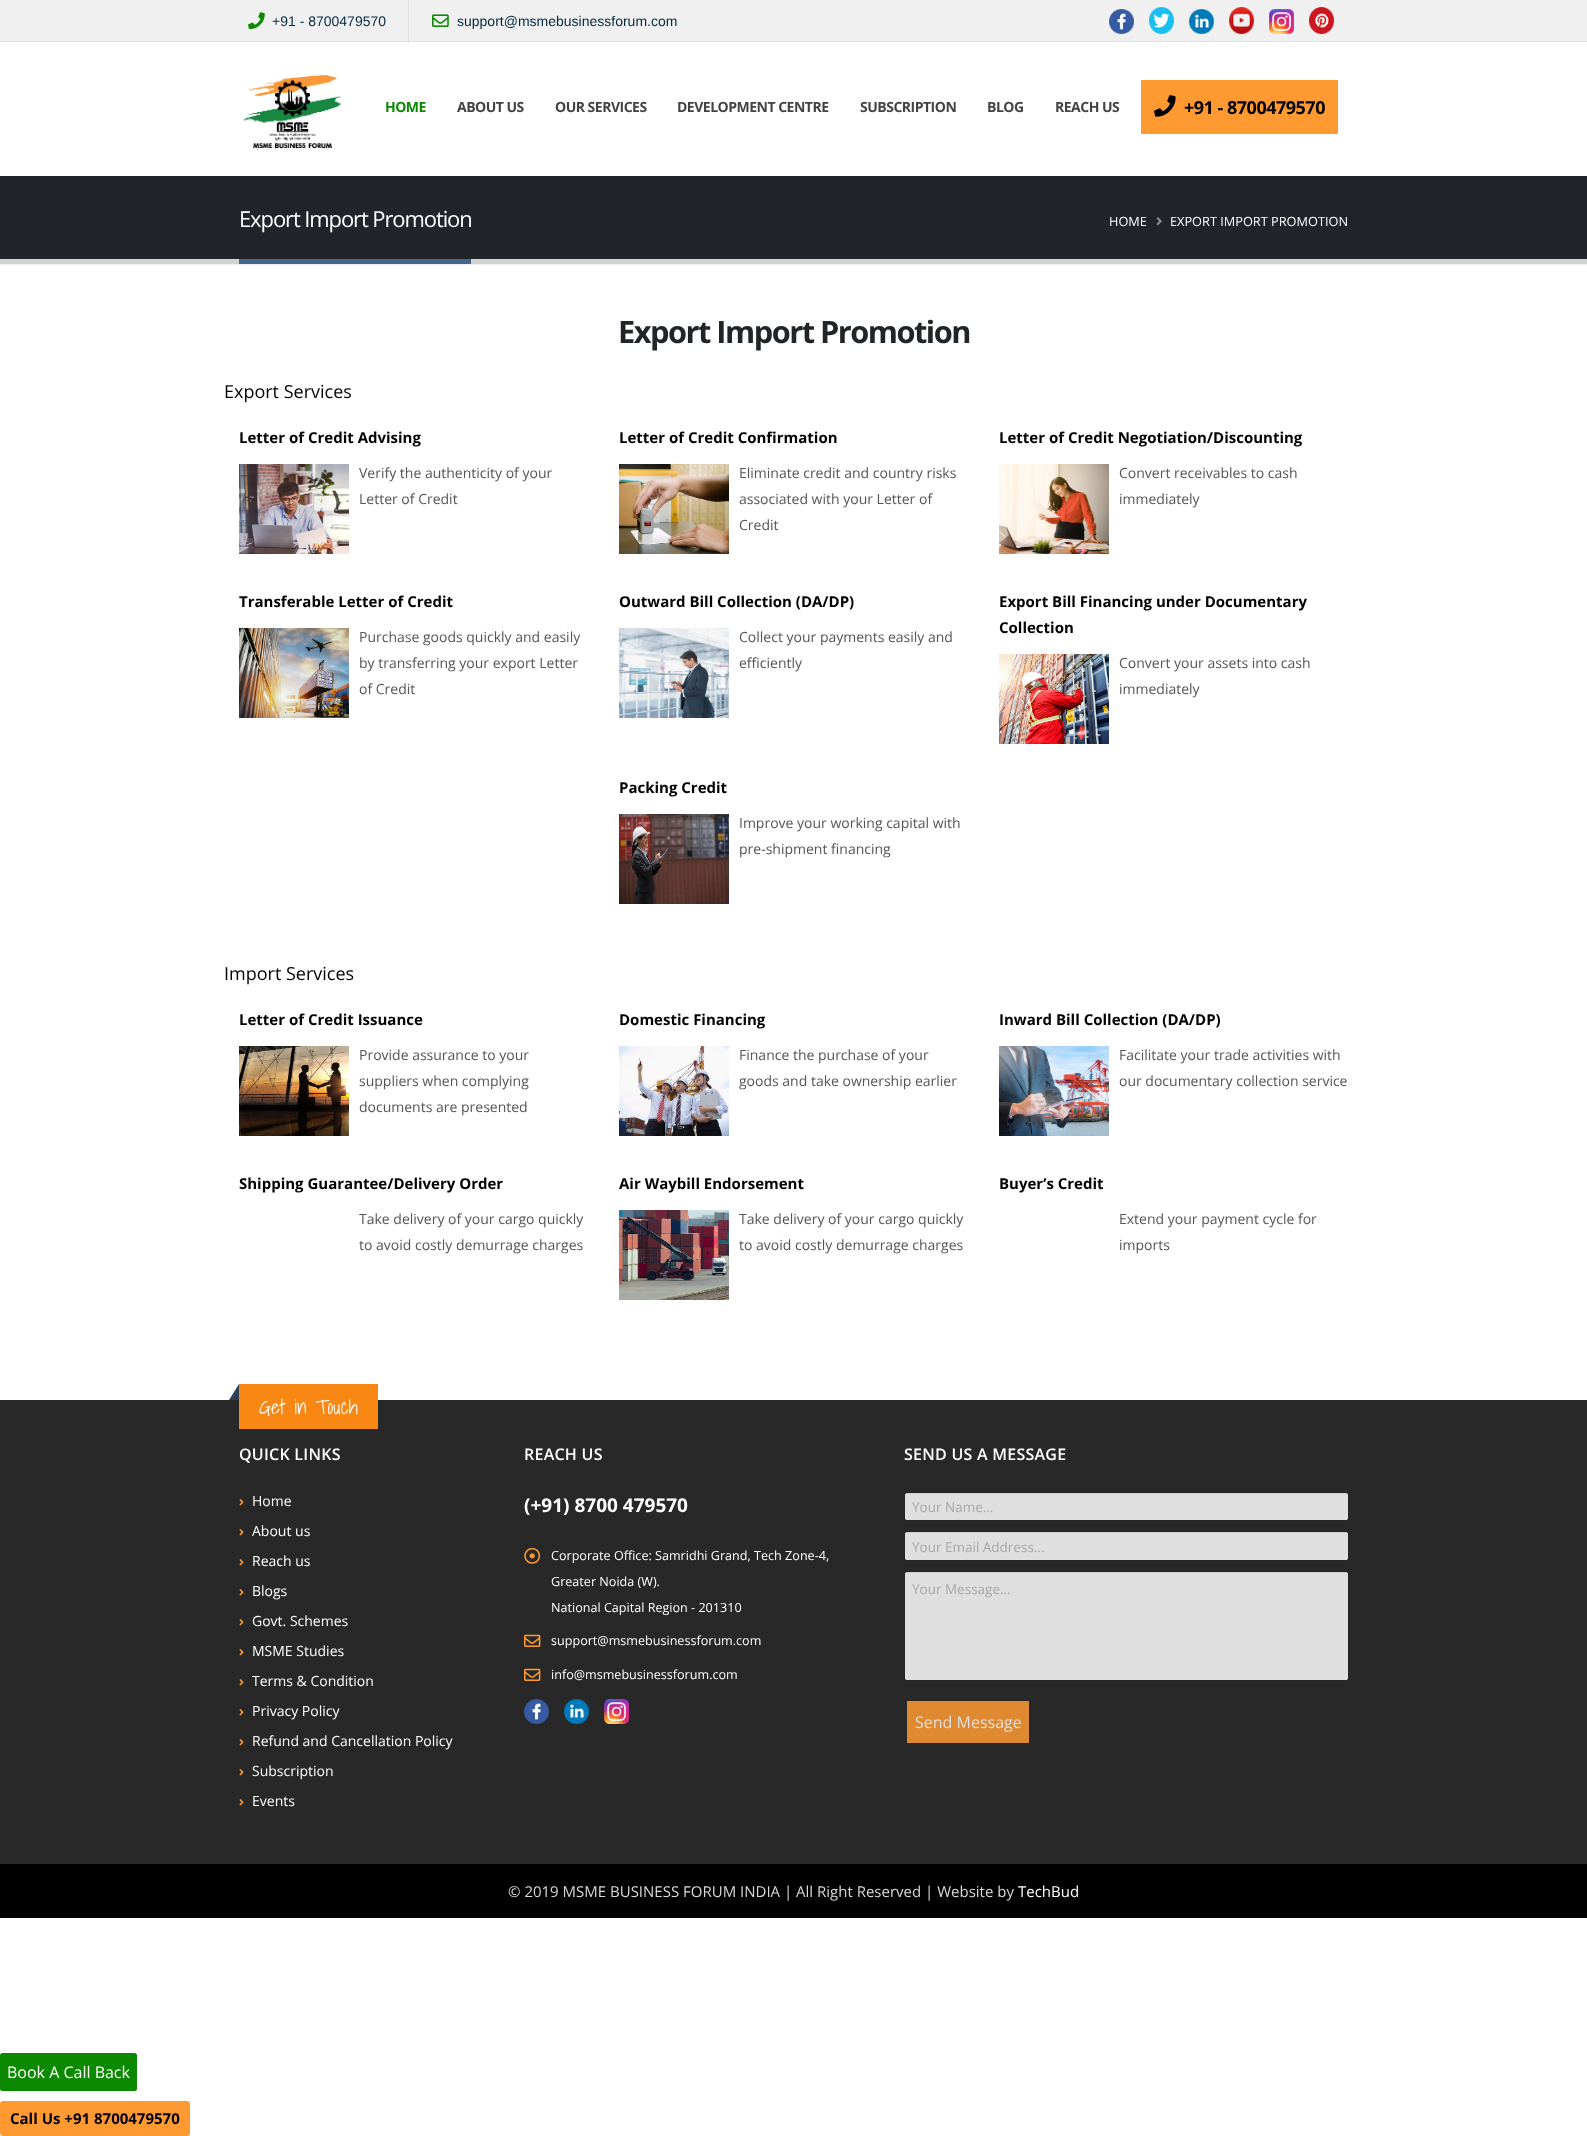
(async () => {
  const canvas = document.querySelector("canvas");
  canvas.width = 1587;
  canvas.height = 2136;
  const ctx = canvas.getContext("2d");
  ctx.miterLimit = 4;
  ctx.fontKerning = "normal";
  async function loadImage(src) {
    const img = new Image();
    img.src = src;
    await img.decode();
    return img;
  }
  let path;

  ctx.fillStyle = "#ffffff";
  ctx.fillRect(0, 0, 1587, 2136);
  for (const [x, y, w, h, color] of [
    [408, 42, 1, 2, "#f0f0f0"],
    [0, 0, 1587, 41, "#f0f0f0"],
    [408, 0, 1, 42, "#e2e2e2"],
    [0, 41, 1587, 1, "#e2e2e2"],
    [408, 41, 1, 1, "#d4d4d4"],
  ]) {
    ctx.fillStyle = color;
    ctx.fillRect(x, y, w, h);
  }
  ctx.drawImage(await loadImage("img/1.png"), 248, 12, 17, 18);
  ctx.drawImage(await loadImage("img/2.png"), 432, 14, 17, 13);
  ctx.drawImage(await loadImage("img/3.png"), 1109, 9, 25, 25);
  ctx.drawImage(await loadImage("img/4.png"), 1149, 7, 25, 27);
  ctx.drawImage(await loadImage("img/5.png"), 1189, 9, 25, 25);
  ctx.drawImage(await loadImage("img/6.png"), 1229, 7, 25, 27);
  ctx.drawImage(await loadImage("img/7.png"), 1269, 9, 25, 25);
  ctx.drawImage(await loadImage("img/8.png"), 1309, 7, 25, 27);
  ctx.drawImage(await loadImage("img/9.png"), 243, 74, 99, 75);
  ctx.fillStyle = "#ff9a32";
  ctx.fillRect(1141, 80, 197, 54);
  ctx.drawImage(await loadImage("img/10.png"), 1154, 95, 22, 22);
  for (const [x, y, w, h, color] of [
    [0, 176, 1587, 83, "#212529"],
    [0, 264, 1587, 1, "#eeeeee"],
    [0, 259, 1587, 5, "#d3d3d4"],
    [239, 259, 232, 5, "#47648b"],
  ]) {
    ctx.fillStyle = color;
    ctx.fillRect(x, y, w, h);
  }
  ctx.drawImage(await loadImage("img/11.png"), 1156, 217, 6, 9);
  ctx.drawImage(await loadImage("img/12.png"), 239, 464, 110, 90);
  ctx.drawImage(await loadImage("img/13.png"), 619, 464, 110, 90);
  ctx.drawImage(await loadImage("img/14.png"), 999, 464, 110, 90);
  ctx.drawImage(await loadImage("img/15.png"), 239, 628, 110, 90);
  ctx.drawImage(await loadImage("img/16.png"), 619, 628, 110, 90);
  ctx.drawImage(await loadImage("img/17.png"), 999, 654, 110, 90);
  ctx.drawImage(await loadImage("img/18.png"), 619, 814, 110, 90);
  ctx.drawImage(await loadImage("img/19.png"), 239, 1046, 110, 90);
  ctx.drawImage(await loadImage("img/20.png"), 619, 1046, 110, 90);
  ctx.drawImage(await loadImage("img/21.png"), 999, 1046, 110, 90);
  ctx.drawImage(await loadImage("img/22.png"), 619, 1210, 110, 90);
  ctx.fillStyle = "#282828";
  ctx.fillRect(0, 1400, 1587, 464);
  ctx.fillStyle = "#f88713";
  ctx.fillRect(239, 1384, 139, 45);
  ctx.fillStyle = "#2d4058";
  path = new Path2D("M239 1384V1400H229Z");
  ctx.fill(path);
  ctx.drawImage(await loadImage("img/23.png"), 239, 1499, 5, 7);
  ctx.drawImage(await loadImage("img/23.png"), 239, 1529, 5, 7);
  ctx.drawImage(await loadImage("img/23.png"), 239, 1559, 5, 7);
  ctx.drawImage(await loadImage("img/23.png"), 239, 1589, 5, 7);
  ctx.drawImage(await loadImage("img/23.png"), 239, 1619, 5, 7);
  ctx.drawImage(await loadImage("img/23.png"), 239, 1649, 5, 7);
  ctx.drawImage(await loadImage("img/23.png"), 239, 1679, 5, 7);
  ctx.drawImage(await loadImage("img/23.png"), 239, 1709, 5, 7);
  ctx.drawImage(await loadImage("img/23.png"), 239, 1739, 5, 7);
  ctx.drawImage(await loadImage("img/23.png"), 239, 1769, 5, 7);
  ctx.drawImage(await loadImage("img/23.png"), 239, 1799, 5, 7);
  ctx.drawImage(await loadImage("img/24.png"), 524, 1547, 17, 17);
  ctx.drawImage(await loadImage("img/25.png"), 524, 1634, 17, 13);
  ctx.drawImage(await loadImage("img/25.png"), 524, 1668, 17, 13);
  ctx.drawImage(await loadImage("img/26.png"), 524, 1699, 25, 25);
  ctx.drawImage(await loadImage("img/27.png"), 564, 1699, 25, 25);
  ctx.drawImage(await loadImage("img/28.png"), 604, 1699, 25, 25);
  ctx.fillStyle = "#dfdfdf";
  ctx.beginPath();
  ctx.roundRect(905, 1493, 443, 27, 1.5);
  ctx.fill();
  ctx.fillStyle = "rgba(6, 6, 6, 0.07)";
  path = new Path2D("M906 1494H1346C1347 1494 1348 1495 1348 1496C1348 1495 1348 1493 1346 1493H906L905 1494V1496Z");
  ctx.fill(path);
  ctx.beginPath();
  ctx.roundRect(904.5, 1492.5, 444, 28, 2);
  ctx.strokeStyle = "#252525";
  ctx.stroke();
  ctx.fillStyle = "#dfdfdf";
  ctx.beginPath();
  ctx.roundRect(905, 1532, 443, 28, 1.5);
  ctx.fill();
  ctx.fillStyle = "rgba(6, 6, 6, 0.07)";
  path = new Path2D("M906 1533H1346L1348 1534C1348 1533 1348 1532 1346 1532H906C905 1532 905 1533 905 1534Z");
  ctx.fill(path);
  ctx.beginPath();
  ctx.roundRect(904.5, 1531.5, 444, 29, 2);
  ctx.stroke();
  ctx.fillStyle = "#dfdfdf";
  ctx.beginPath();
  ctx.roundRect(905, 1572, 443, 108, 1.5);
  ctx.fill();
  ctx.fillStyle = "rgba(6, 6, 6, 0.07)";
  path = new Path2D("M906 1573H1346L1348 1574C1348 1573 1348 1572 1346 1572H906C905 1572 905 1573 905 1574Z");
  ctx.fill(path);
  ctx.beginPath();
  ctx.roundRect(904.5, 1571.5, 444, 109, 2);
  ctx.stroke();
  ctx.fillStyle = "#df8931";
  ctx.fillRect(907, 1701, 122, 42);
  ctx.fillStyle = "#000000";
  ctx.fillRect(0, 1864, 1587, 54);
  ctx.fillStyle = "#0b8901";
  ctx.beginPath();
  ctx.roundRect(1, 2054, 135, 36, 1.5);
  ctx.fill();
  ctx.strokeStyle = "#0b8901";
  ctx.lineWidth = 2;
  ctx.stroke();
  ctx.fillStyle = "#ff9a32";
  ctx.beginPath();
  ctx.roundRect(0.5, 2101.5, 189, 34, 2);
  ctx.fill();
  ctx.strokeStyle = "#ff9a32";
  ctx.lineWidth = 1;
  ctx.stroke();
  ctx.font = "14px Liberation Sans";
  ctx.fillStyle = "#04293f";
  ctx.fillText("+91 - 8700479570", 272, 26);
  ctx.fillText("support@msmebusinessforum.com", 457, 26);
  ctx.letterSpacing = "-0.5px";
  ctx.font = "bold 14px Open Sans";
  ctx.fillStyle = "#0b8901";
  ctx.fillText("HOME", 385, 112);
  ctx.fillStyle = "#434343";
  for (const [text, x, y] of [
    ["ABOUT US", 457, 112],
    ["OUR SERVICES", 555, 112],
    ["DEVELOPMENT CENTRE", 677, 112],
    ["SUBSCRIPTION", 860, 112],
    ["BLOG", 987, 112],
    ["REACH US", 1055, 112],
  ]) {
    ctx.fillText(text, x, y);
  }
  ctx.font = "bold 18px Open Sans";
  ctx.fillStyle = "#000000";
  ctx.fillText("+91 - 8700479570", 1184, 114);
  ctx.letterSpacing = "-1.1px";
  ctx.font = "22px Open Sans";
  ctx.fillStyle = "#ffffff";
  ctx.fillText("Export Import Promotion", 239, 227);
  ctx.letterSpacing = "0px";
  ctx.font = "12.75px Open Sans";
  ctx.fillText("HOME", 1109, 226);
  ctx.fillText("EXPORT IMPORT PROMOTION", 1170, 226);
  ctx.letterSpacing = "-1.5px";
  ctx.font = "bold 30.75px Open Sans";
  ctx.fillStyle = "#212529";
  ctx.fillText("Export Import Promotion", 618, 343);
  ctx.letterSpacing = "0px";
  ctx.font = "18px Open Sans";
  ctx.fillStyle = "#000000";
  ctx.fillText("Export Services", 224, 398);
  ctx.font = "bold 15px Open Sans";
  ctx.fillText("Letter of Credit Advising", 239, 443);
  ctx.font = "14px Open Sans";
  ctx.fillStyle = "#555555";
  ctx.fillText("Verify the authenticity of your", 359, 478);
  ctx.fillText("Letter of Credit", 359, 504);
  ctx.font = "bold 15px Open Sans";
  ctx.fillStyle = "#000000";
  ctx.fillText("Letter of Credit Confirmation", 619, 443);
  ctx.font = "14px Open Sans";
  ctx.fillStyle = "#555555";
  for (const [text, x, y] of [
    ["Eliminate credit and country risks", 739, 478],
    ["associated with your Letter of", 739, 504],
    ["Credit", 739, 530],
  ]) {
    ctx.fillText(text, x, y);
  }
  ctx.font = "bold 15px Open Sans";
  ctx.fillStyle = "#000000";
  ctx.fillText("Letter of Credit Negotiation/Discounting", 999, 443);
  ctx.font = "14px Open Sans";
  ctx.fillStyle = "#555555";
  ctx.fillText("Convert receivables to cash", 1119, 478);
  ctx.fillText("immediately", 1119, 504);
  ctx.font = "bold 15px Open Sans";
  ctx.fillStyle = "#000000";
  ctx.fillText("Transferable Letter of Credit", 239, 607);
  ctx.font = "14px Open Sans";
  ctx.fillStyle = "#555555";
  for (const [text, x, y] of [
    ["Purchase goods quickly and easily", 359, 642],
    ["by transferring your export Letter", 359, 668],
    ["of Credit", 359, 694],
  ]) {
    ctx.fillText(text, x, y);
  }
  ctx.font = "bold 15px Open Sans";
  ctx.fillStyle = "#000000";
  ctx.fillText("Outward Bill Collection (DA/DP)", 619, 607);
  ctx.font = "14px Open Sans";
  ctx.fillStyle = "#555555";
  ctx.fillText("Collect your payments easily and", 739, 642);
  ctx.fillText("efficiently", 739, 668);
  ctx.font = "bold 15px Open Sans";
  ctx.fillStyle = "#000000";
  ctx.fillText("Export Bill Financing under Documentary", 999, 607);
  ctx.fillText("Collection", 999, 633);
  ctx.font = "14px Open Sans";
  ctx.fillStyle = "#555555";
  ctx.fillText("Convert your assets into cash", 1119, 668);
  ctx.fillText("immediately", 1119, 694);
  ctx.font = "bold 15px Open Sans";
  ctx.fillStyle = "#000000";
  ctx.fillText("Packing Credit", 619, 793);
  ctx.font = "14px Open Sans";
  ctx.fillStyle = "#555555";
  ctx.fillText("Improve your working capital with", 739, 828);
  ctx.fillText("pre-shipment financing", 739, 854);
  ctx.font = "18px Open Sans";
  ctx.fillStyle = "#000000";
  ctx.fillText("Import Services", 224, 980);
  ctx.font = "bold 15px Open Sans";
  ctx.fillText("Letter of Credit Issuance", 239, 1025);
  ctx.font = "14px Open Sans";
  ctx.fillStyle = "#555555";
  for (const [text, x, y] of [
    ["Provide assurance to your", 359, 1060],
    ["suppliers when complying", 359, 1086],
    ["documents are presented", 359, 1112],
  ]) {
    ctx.fillText(text, x, y);
  }
  ctx.font = "bold 15px Open Sans";
  ctx.fillStyle = "#000000";
  ctx.fillText("Domestic Financing", 619, 1025);
  ctx.font = "14px Open Sans";
  ctx.fillStyle = "#555555";
  ctx.fillText("Finance the purchase of your", 739, 1060);
  ctx.fillText("goods and take ownership earlier", 739, 1086);
  ctx.font = "bold 15px Open Sans";
  ctx.fillStyle = "#000000";
  ctx.fillText("Inward Bill Collection (DA/DP)", 999, 1025);
  ctx.font = "14px Open Sans";
  ctx.fillStyle = "#555555";
  ctx.fillText("Facilitate your trade activities with", 1119, 1060);
  ctx.fillText("our documentary collection service", 1119, 1086);
  ctx.font = "bold 15px Open Sans";
  ctx.fillStyle = "#000000";
  ctx.fillText("Shipping Guarantee/Delivery Order", 239, 1189);
  ctx.font = "14px Open Sans";
  ctx.fillStyle = "#555555";
  ctx.fillText("Take delivery of your cargo quickly", 359, 1224);
  ctx.fillText("to avoid costly demurrage charges", 359, 1250);
  ctx.font = "bold 15px Open Sans";
  ctx.fillStyle = "#000000";
  ctx.fillText("Air Waybill Endorsement", 619, 1189);
  ctx.font = "14px Open Sans";
  ctx.fillStyle = "#555555";
  ctx.fillText("Take delivery of your cargo quickly", 739, 1224);
  ctx.fillText("to avoid costly demurrage charges", 739, 1250);
  ctx.font = "bold 15px Open Sans";
  ctx.fillStyle = "#000000";
  ctx.fillText("Buyer’s Credit", 999, 1189);
  ctx.font = "14px Open Sans";
  ctx.fillStyle = "#555555";
  ctx.fillText("Extend your payment cycle for", 1119, 1224);
  ctx.fillText("imports", 1119, 1250);
  ctx.font = "300 20px Shadows Into Light";
  ctx.fillStyle = "#ffffff";
  ctx.fillText("Get in Touch", 259, 1414);
  ctx.letterSpacing = "0.25px";
  ctx.font = "600 16px Open Sans";
  ctx.fillText("QUICK LINKS", 239, 1460);
  ctx.letterSpacing = "0px";
  ctx.font = "14px Open Sans";
  for (const [text, x, y] of [
    ["Home", 252, 1506],
    ["About us", 252, 1536],
    ["Reach us", 252, 1566],
    ["Blogs", 252, 1596],
    ["Govt. Schemes", 252, 1626],
    ["MSME Studies", 252, 1656],
    ["Terms & Condition", 252, 1686],
    ["Privacy Policy", 252, 1716],
    ["Refund and Cancellation Policy", 252, 1746],
    ["Subscription", 252, 1776],
    ["Events", 252, 1806],
  ]) {
    ctx.fillText(text, x, y);
  }
  ctx.letterSpacing = "0.25px";
  ctx.font = "600 16px Open Sans";
  ctx.fillText("REACH US", 524, 1460);
  ctx.letterSpacing = "0px";
  ctx.font = "bold 19px Open Sans";
  ctx.fillText("(+91) 8700 479570", 524, 1512);
  ctx.font = "12.6px Open Sans";
  for (const [text, x, y] of [
    ["Corporate Office: Samridhi Grand, Tech Zone-4,", 551, 1560],
    ["Greater Noida (W).", 551, 1586],
    ["National Capital Region - 201310", 551, 1612],
    ["support@msmebusinessforum.com", 551, 1645],
    ["info@msmebusinessforum.com", 551, 1679],
  ]) {
    ctx.fillText(text, x, y);
  }
  ctx.letterSpacing = "0.25px";
  ctx.font = "600 16px Open Sans";
  ctx.fillText("SEND US A MESSAGE", 904, 1460);
  ctx.letterSpacing = "0px";
  ctx.font = "13.5px Open Sans";
  ctx.fillStyle = "#a7a7a7";
  for (const [text, x, y] of [
    ["Your Name...", 912, 1512],
    ["Your Email Address...", 912, 1552],
    ["Your Message...", 912, 1594],
  ]) {
    ctx.fillText(text, x, y);
  }
  ctx.font = "16px Open Sans";
  ctx.fillStyle = "#dfdfdf";
  ctx.fillText("Send Message", 915, 1728);
  ctx.font = "15px Open Sans";
  ctx.fillStyle = "#d9d9d9";
  ctx.fillText("© 2019 MSME BUSINESS FORUM INDIA | All Right Reserved | Website by", 508, 1897);
  ctx.fillStyle = "#ffffff";
  ctx.fillText("TechBud", 1018, 1897);
  ctx.font = "16px Open Sans";
  ctx.fillText("Book A Call Back", 7, 2078);
  ctx.font = "bold 15px Open Sans";
  ctx.fillStyle = "#000000";
  ctx.fillText("Call Us +91 8700479570", 10, 2124);
})();
